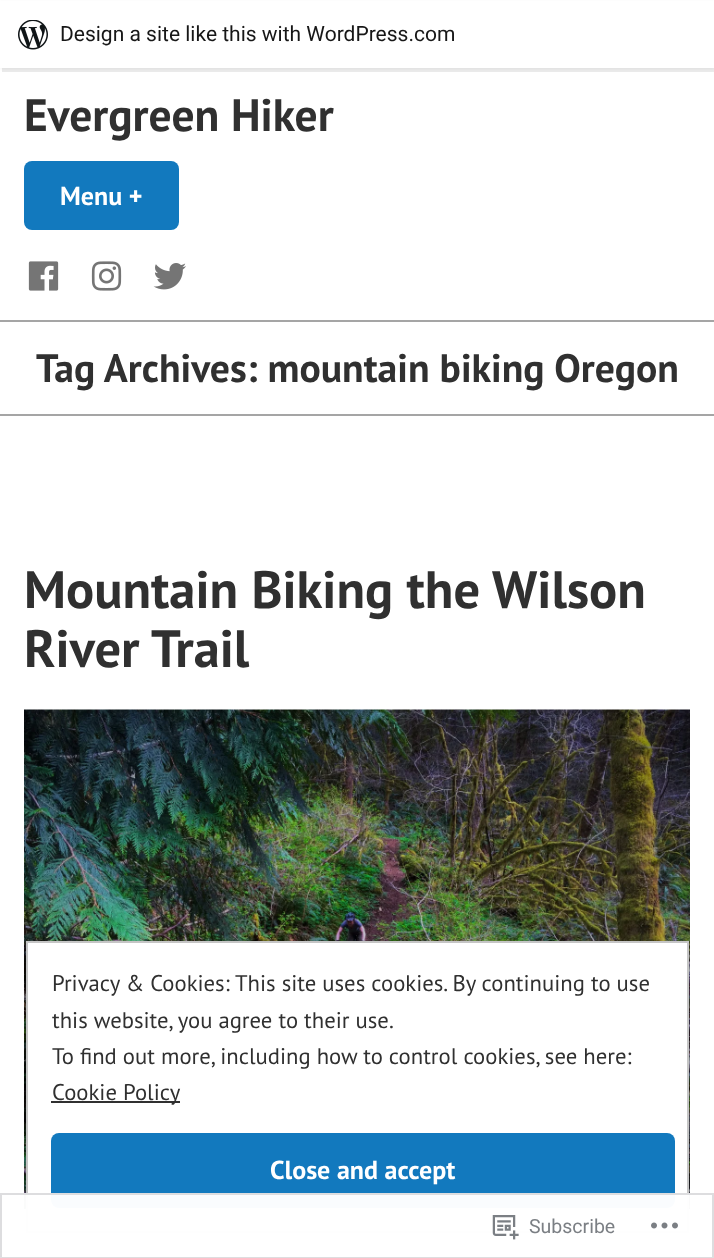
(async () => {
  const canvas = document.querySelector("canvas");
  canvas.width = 714;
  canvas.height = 1258;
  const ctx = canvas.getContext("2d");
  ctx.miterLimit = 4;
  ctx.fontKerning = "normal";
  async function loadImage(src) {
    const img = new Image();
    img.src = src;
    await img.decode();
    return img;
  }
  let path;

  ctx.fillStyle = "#ffffff";
  ctx.fillRect(0, 0, 714, 1258);
  ctx.fillStyle = "rgba(0, 0, 0, 0.05)";
  ctx.filter = "blur(1.5px)";
  ctx.beginPath();
  ctx.rect(0, 2, 714, 67);
  ctx.fill();
  ctx.filter = "none";
  ctx.fillStyle = "rgba(0, 0, 0, 0.08)";
  path = new Path2D("M2 68V72H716V5H714V68Z");
  ctx.fill(path);
  ctx.fillStyle = "#ffffff";
  ctx.fillRect(0, 1, 714, 67);
  ctx.drawImage(await loadImage("img/1.png"), 18, 20, 30, 30);
  ctx.fillStyle = "#1279be";
  ctx.beginPath();
  ctx.roundRect(24, 161, 155, 69, 8);
  ctx.fill();
  ctx.drawImage(await loadImage("img/2.png"), 28, 261, 31, 30);
  ctx.drawImage(await loadImage("img/3.png"), 91, 261, 31, 30);
  ctx.drawImage(await loadImage("img/4.png"), 153, 263, 33, 27);
  ctx.fillStyle = "#a5a5a5";
  ctx.fillRect(0, 320, 714, 2);
  ctx.fillRect(0, 414, 714, 2);
  ctx.drawImage(await loadImage("img/5.png"), 24, 709, 666, 500);
  ctx.fillStyle = "#ffffff";
  ctx.fillRect(28, 943, 659, 266);
  ctx.strokeStyle = "#c5c5c5";
  ctx.lineWidth = 2;
  ctx.strokeRect(27, 942, 661, 290);
  ctx.fillStyle = "#303030";
  ctx.fillRect(51, 1101, 129, 2);
  ctx.fillStyle = "#1279be";
  ctx.beginPath();
  ctx.roundRect(51, 1133, 624, 75, 8);
  ctx.fill();
  ctx.fillStyle = "rgba(255, 255, 255, 0.98)";
  ctx.fillRect(24, 1193, 666, 40);
  ctx.strokeStyle = "rgba(220, 220, 222, 0.98)";
  ctx.strokeRect(1, 1194, 712, 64);
  ctx.drawImage(await loadImage("img/6.png"), 492, 1215, 27, 25);
  ctx.drawImage(await loadImage("img/7.png"), 651, 1222, 27, 7);
  ctx.font = "21px Roboto";
  ctx.fillStyle = "#171717";
  ctx.fillText("Design a site like this with WordPress.com", 60, 41);
  ctx.font = "bold 45.5px PT Sans";
  ctx.fillStyle = "#303030";
  ctx.fillText("Evergreen Hiker", 24, 131);
  ctx.font = "bold 26px PT Sans";
  ctx.fillStyle = "#ffffff";
  ctx.fillText("Menu +", 60, 205);
  ctx.font = "bold 39.7px PT Sans";
  ctx.fillStyle = "#303030";
  ctx.fillText("Tag Archives: mountain biking Oregon", 36, 382);
  ctx.font = "bold 52.5px PT Sans";
  ctx.fillText("Mountain Biking the Wilson", 24, 608);
  ctx.fillText("River Trail", 24, 667);
  ctx.font = "22.7px PT Sans";
  for (const [text, x, y] of [
    ["Privacy & Cookies: This site uses cookies. By continuing to use", 52, 991],
    ["this website, you agree to their use.", 52, 1028],
    ["To find out more, including how to control cookies, see here:", 52, 1064],
    ["Cookie Policy", 52, 1100],
  ]) {
    ctx.fillText(text, x, y);
  }
  ctx.font = "bold 26px PT Sans";
  ctx.fillStyle = "#ffffff";
  ctx.fillText("Close and accept", 270, 1179);
  ctx.font = "19.5px Roboto";
  ctx.fillStyle = "#7b7f84";
  ctx.fillText("Subscribe", 529, 1233);
})();
